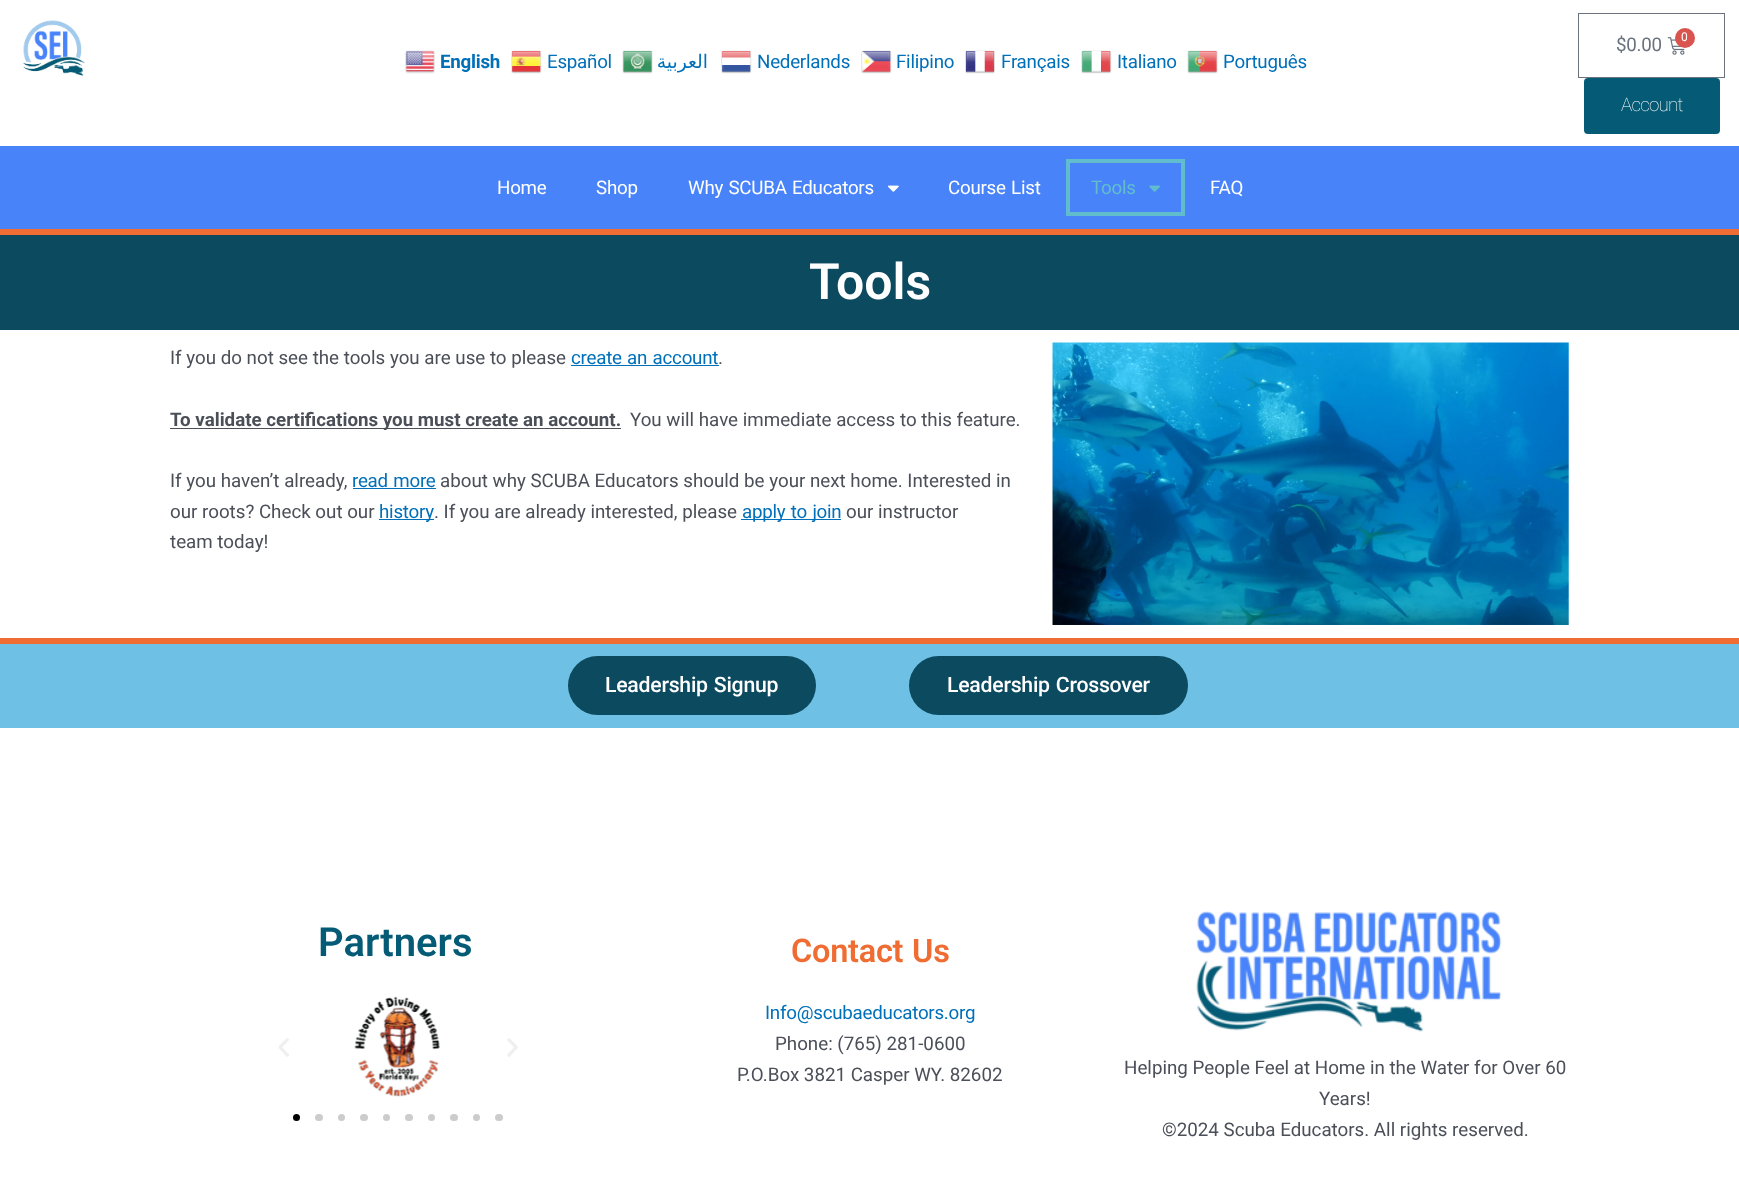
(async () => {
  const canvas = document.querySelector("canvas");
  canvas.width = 1739;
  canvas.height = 1191;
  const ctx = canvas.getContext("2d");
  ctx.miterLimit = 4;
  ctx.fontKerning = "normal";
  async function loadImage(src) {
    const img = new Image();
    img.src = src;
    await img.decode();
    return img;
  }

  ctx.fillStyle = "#ffffff";
  ctx.fillRect(0, 0, 1739, 1191);
  ctx.drawImage(await loadImage("img/1.png"), 23, 20, 62, 56);
  ctx.drawImage(await loadImage("img/2.png"), 405, 50, 30, 24);
  ctx.drawImage(await loadImage("img/3.png"), 511, 50, 31, 24);
  ctx.drawImage(await loadImage("img/4.png"), 622, 50, 31, 24);
  ctx.drawImage(await loadImage("img/5.png"), 721, 50, 31, 24);
  ctx.drawImage(await loadImage("img/6.png"), 861, 50, 31, 24);
  ctx.drawImage(await loadImage("img/7.png"), 965, 50, 30, 24);
  ctx.drawImage(await loadImage("img/8.png"), 1081, 50, 31, 24);
  ctx.drawImage(await loadImage("img/9.png"), 1187, 50, 31, 24);
  ctx.strokeStyle = "#69727d";
  ctx.strokeRect(1578.5, 13.5, 146, 64);
  ctx.drawImage(await loadImage("img/10.png"), 1667, 37, 18, 18);
  ctx.fillStyle = "#d9534f";
  ctx.beginPath();
  ctx.arc(1685, 38, 10, 0, Math.PI * 2);
  ctx.fill();
  ctx.fillStyle = "#055b75";
  ctx.beginPath();
  ctx.roundRect(1584, 78, 136, 56, 4);
  ctx.fill();
  ctx.fillStyle = "#4883f9";
  ctx.fillRect(0, 146, 1739, 83);
  ctx.drawImage(await loadImage("img/11.png"), 887, 185, 12, 7);
  ctx.drawImage(await loadImage("img/12.png"), 1149, 185, 11, 7);
  ctx.strokeStyle = "#61bdce";
  ctx.lineWidth = 4;
  ctx.strokeRect(1068, 161, 115, 53);
  for (const [x, y, w, h, color] of [
    [0, 235, 1739, 95, "#0c4a60"],
    [0, 229, 1739, 6, "#ef6c33"],
    [571, 365, 148, 1, "#0170b9"],
    [170, 428, 451, 1, "#4b4f58"],
    [353, 488, 83, 1, "#0170b9"],
    [379, 519, 55, 1, "#0170b9"],
    [741, 519, 100, 1, "#0170b9"],
  ]) {
    ctx.fillStyle = color;
    ctx.fillRect(x, y, w, h);
  }
  ctx.drawImage(await loadImage("img/13.png"), 1052, 342, 517, 283);
  ctx.fillStyle = "#6ec1e4";
  ctx.fillRect(0, 644, 1739, 84);
  ctx.fillStyle = "#ef6c33";
  ctx.fillRect(0, 638, 1739, 6);
  ctx.fillStyle = "#0c4a60";
  ctx.beginPath();
  ctx.roundRect(568, 656, 248, 59, 29.5);
  ctx.fill();
  ctx.beginPath();
  ctx.roundRect(909, 656, 279, 59, 29.5);
  ctx.fill();
  ctx.drawImage(await loadImage("img/14.png"), 278, 1038, 11, 19);
  ctx.drawImage(await loadImage("img/15.png"), 354, 996, 86, 101);
  ctx.drawImage(await loadImage("img/16.png"), 507, 1038, 11, 19);
  ctx.fillStyle = "#000000";
  ctx.beginPath();
  ctx.arc(296.5, 1117.5, 3.5, 0, Math.PI * 2);
  ctx.fill();
  ctx.fillStyle = "#cccccc";
  ctx.beginPath();
  ctx.roundRect(315, 1114, 8, 7, 3.5);
  ctx.fill();
  ctx.beginPath();
  ctx.arc(341.5, 1117.5, 3.5, 0, Math.PI * 2);
  ctx.fill();
  ctx.beginPath();
  ctx.roundRect(360, 1114, 8, 7, 3.5);
  ctx.fill();
  ctx.beginPath();
  ctx.arc(386.5, 1117.5, 3.5, 0, Math.PI * 2);
  ctx.fill();
  ctx.beginPath();
  ctx.roundRect(405, 1114, 8, 7, 3.5);
  ctx.fill();
  ctx.beginPath();
  ctx.arc(431.5, 1117.5, 3.5, 0, Math.PI * 2);
  ctx.fill();
  ctx.beginPath();
  ctx.roundRect(450, 1114, 8, 7, 3.5);
  ctx.fill();
  ctx.beginPath();
  ctx.arc(476.5, 1117.5, 3.5, 0, Math.PI * 2);
  ctx.fill();
  ctx.beginPath();
  ctx.roundRect(495, 1114, 8, 7, 3.5);
  ctx.fill();
  ctx.drawImage(await loadImage("img/17.png"), 1196, 911, 306, 121);
  ctx.letterSpacing = "-0.25px";
  ctx.font = "bold 18.75px Roboto";
  ctx.fillStyle = "#0170b9";
  ctx.fillText("English", 440, 68);
  ctx.font = "18.75px Roboto";
  ctx.fillText("Español", 547, 68);
  ctx.direction = "rtl";
  ctx.font = "18.75px DejaVu Sans";
  ctx.fillText("العربية", 708, 68);
  ctx.direction = "ltr";
  ctx.font = "18.75px Roboto";
  for (const [text, x, y] of [
    ["Nederlands", 757, 68],
    ["Filipino", 896, 68],
    ["Français", 1001, 68],
    ["Italiano", 1117, 68],
    ["Português", 1223, 68],
  ]) {
    ctx.fillText(text, x, y);
  }
  ctx.fillStyle = "#69727d";
  ctx.fillText("$0.00", 1616, 51);
  ctx.font = "12px Roboto";
  ctx.fillStyle = "#ffffff";
  ctx.fillText("0", 1681, 41);
  ctx.letterSpacing = "-0.75px";
  ctx.font = "100 18.75px Roboto";
  ctx.fillText("Account", 1621, 111);
  ctx.letterSpacing = "-0.25px";
  ctx.font = "18.75px Roboto";
  ctx.fillText("Home", 497, 194);
  ctx.fillText("Shop", 596, 194);
  ctx.wordSpacing = "1px";
  ctx.fillText("Why SCUBA Educators", 688, 194);
  ctx.fillText("Course List", 948, 194);
  ctx.wordSpacing = "0px";
  ctx.fillStyle = "#61bdce";
  ctx.fillText("Tools", 1091, 194);
  ctx.fillStyle = "#ffffff";
  ctx.fillText("FAQ", 1210, 194);
  ctx.letterSpacing = "0px";
  ctx.font = "600 50px Roboto";
  ctx.fillText("Tools", 809, 299);
  ctx.font = "18.75px Roboto";
  ctx.fillStyle = "#4b4f58";
  ctx.fillText("If you do not see the tools you are use to please", 170, 364);
  ctx.letterSpacing = "-0.25px";
  ctx.wordSpacing = "1px";
  ctx.fillStyle = "#0170b9";
  ctx.fillText("create an account", 571, 364);
  ctx.letterSpacing = "0px";
  ctx.wordSpacing = "0px";
  ctx.fillStyle = "#4b4f58";
  ctx.fillText(".", 718, 364);
  ctx.font = "bold 18.75px Roboto";
  ctx.fillText("To validate certifications you must create an account.", 170, 426);
  ctx.font = "18.75px Roboto";
  ctx.fillText("You will have immediate access to this feature.", 630, 426);
  ctx.fillText("If you haven’t already,", 170, 487);
  ctx.letterSpacing = "-0.25px";
  ctx.wordSpacing = "1px";
  ctx.fillStyle = "#0170b9";
  ctx.fillText("read more", 352, 487);
  ctx.letterSpacing = "0px";
  ctx.wordSpacing = "0px";
  ctx.fillStyle = "#4b4f58";
  ctx.fillText("about why SCUBA Educators should be your next home. Interested in", 440, 487);
  ctx.fillText("our roots? Check out our", 170, 518);
  ctx.letterSpacing = "-0.25px";
  ctx.fillStyle = "#0170b9";
  ctx.fillText("history", 379, 518);
  ctx.letterSpacing = "0px";
  ctx.fillStyle = "#4b4f58";
  ctx.fillText(". If you are already interested, please", 434, 518);
  ctx.letterSpacing = "-0.25px";
  ctx.wordSpacing = "1px";
  ctx.fillStyle = "#0170b9";
  ctx.fillText("apply to join", 742, 518);
  ctx.letterSpacing = "0px";
  ctx.wordSpacing = "0px";
  ctx.fillStyle = "#4b4f58";
  ctx.fillText("our instructor", 846, 518);
  ctx.fillText("team today!", 170, 548);
  ctx.letterSpacing = "-0.25px";
  ctx.wordSpacing = "1px";
  ctx.font = "500 21.25px Roboto";
  ctx.fillStyle = "#ffffff";
  ctx.fillText("Leadership Signup", 605, 692);
  ctx.fillText("Leadership Crossover", 947, 692);
  ctx.letterSpacing = "0px";
  ctx.wordSpacing = "0px";
  ctx.font = "600 40px Roboto";
  ctx.fillStyle = "#055b75";
  ctx.fillText("Partners", 318, 956);
  ctx.letterSpacing = "-0.25px";
  ctx.wordSpacing = "1px";
  ctx.font = "600 32.5px Roboto";
  ctx.fillStyle = "#ef6c33";
  ctx.fillText("Contact Us", 791, 962);
  ctx.wordSpacing = "0px";
  ctx.font = "18.75px Roboto";
  ctx.fillStyle = "#0170b9";
  ctx.fillText("Info@scubaeducators.org", 765, 1019);
  ctx.letterSpacing = "0px";
  ctx.fillStyle = "#4b4f58";
  for (const [text, x, y] of [
    ["Phone: (765) 281-0600", 775, 1050],
    ["P.O.Box 3821 Casper WY. 82602", 737, 1081],
    ["Helping People Feel at Home in the Water for Over 60", 1124, 1074],
    ["Years!", 1319, 1105],
    ["©2024 Scuba Educators. All rights reserved.", 1162, 1136],
  ]) {
    ctx.fillText(text, x, y);
  }
})();
